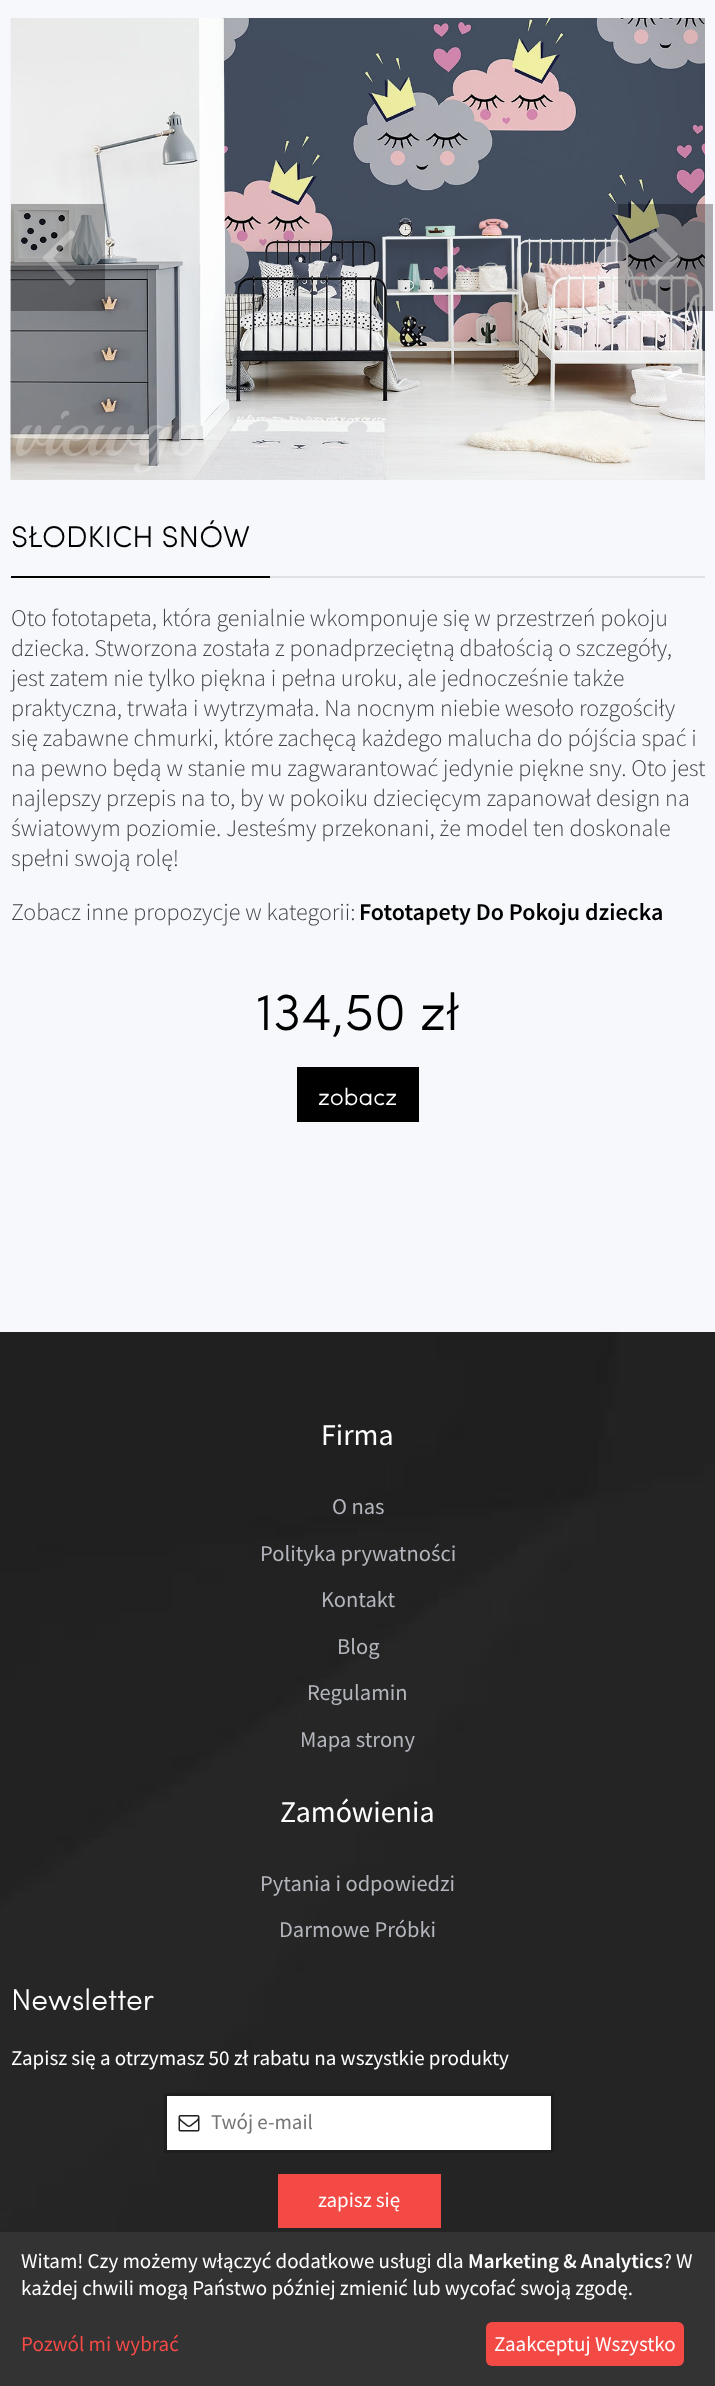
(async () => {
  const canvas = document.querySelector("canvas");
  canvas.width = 715;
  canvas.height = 2386;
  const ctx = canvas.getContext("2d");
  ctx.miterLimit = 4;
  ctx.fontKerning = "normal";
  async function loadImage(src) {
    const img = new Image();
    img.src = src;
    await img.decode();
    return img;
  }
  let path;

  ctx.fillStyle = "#f6f8fc";
  ctx.fillRect(0, 0, 715, 2386);
  ctx.drawImage(await loadImage("img/1.png"), 10, 18, 695, 462);
  ctx.fillStyle = "rgba(0, 0, 0, 0.3)";
  ctx.fillRect(11, 204, 94, 107);
  ctx.fillStyle = "rgba(255, 255, 255, 0.3)";
  path = new Path2D("M75 233C77 235 72 239 71 239L53 258L71 276C75 280 77 280 73 283C72 284 71 286 69 285L48 263C41 257 41 259 48 252L69 231C71 229 74 232 75 233Z");
  ctx.fill(path);
  ctx.fillStyle = "rgba(0, 0, 0, 0.3)";
  ctx.fillRect(618, 204, 95, 107);
  ctx.fillStyle = "rgba(255, 255, 255, 0.3)";
  path = new Path2D("M680 256C683 259 676 263 676 263L659 280C659 281 655 287 652 285C651 284 647 281 649 279L671 258L653 239C649 236 647 236 651 232C654 228 655 231 659 235Z");
  ctx.fill(path);
  for (const [x, y, w, h, color] of [
    [270, 576, 435, 2, "#dfe1e3"],
    [11, 576, 259, 2, "#000000"],
    [297, 1067, 122, 55, "#000000"],
  ]) {
    ctx.fillStyle = color;
    ctx.fillRect(x, y, w, h);
  }
  ctx.drawImage(await loadImage("img/2.png"), 0, 1332, 715, 900);
  ctx.fillStyle = "#ffffff";
  ctx.beginPath();
  ctx.rect(165.5, 2094.5, 387, 57);
  ctx.fill();
  ctx.strokeStyle = "#1e1e1e";
  ctx.lineWidth = 3;
  ctx.stroke();
  ctx.drawImage(await loadImage("img/3.png"), 178, 2115, 22, 17);
  ctx.fillStyle = "#f44a46";
  ctx.fillRect(278, 2174, 163, 54);
  ctx.fillStyle = "#333333";
  ctx.fillRect(0, 2232, 715, 154);
  ctx.fillStyle = "#f44a46";
  ctx.beginPath();
  ctx.roundRect(486, 2322, 198, 44, 6);
  ctx.fill();
  ctx.font = "30px Sofia";
  ctx.fillStyle = "#000000";
  ctx.fillText("SŁODKICH SNÓW", 11, 547);
  ctx.font = "300 24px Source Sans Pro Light";
  ctx.fillStyle = "#40444a";
  for (const [text, x, y] of [
    ["Oto fototapeta, która genialnie wkomponuje się w przestrzeń pokoju", 11, 626],
    ["dziecka. Stworzona została z ponadprzeciętną dbałością o szczegóły,", 11, 656],
    ["jest zatem nie tylko piękna i pełna uroku, ale jednocześnie także", 11, 686],
    ["praktyczna, trwała i wytrzymała. Na nocnym niebie wesoło rozgościły", 11, 716],
    ["się zabawne chmurki, które zachęcą każdego malucha do pójścia spać i", 11, 746],
    ["na pewno będą w stanie mu zagwarantować jedynie piękne sny. Oto jest", 11, 776],
    ["najlepszy przepis na to, by w pokoiku dziecięcym zapanował design na", 11, 806],
    ["światowym poziomie. Jesteśmy przekonani, że model ten doskonale", 11, 836],
    ["spełni swoją rolę!", 11, 866],
    ["Zobacz inne propozycje w kategorii:", 11, 920],
  ]) {
    ctx.fillText(text, x, y);
  }
  ctx.font = "600 24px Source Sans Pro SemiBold";
  ctx.fillStyle = "#000000";
  ctx.fillText("Fototapety Do Pokoju dziecka", 359, 920);
  ctx.font = "52.5px Sofia";
  ctx.fillText("134,50 zł", 256, 1030);
  ctx.font = "24px Sofia";
  ctx.fillStyle = "#ffffff";
  ctx.fillText("zobacz", 318, 1105);
  ctx.font = "30px Source Sans Pro";
  ctx.fillText("Firma", 321, 1445);
  ctx.font = "22.5px Source Sans Pro";
  ctx.fillStyle = "#b3b6bc";
  for (const [text, x, y] of [
    ["O nas", 332, 1514],
    ["Polityka prywatności", 260, 1561],
    ["Kontakt", 321, 1607],
    ["Blog", 337, 1654],
    ["Regulamin", 307, 1700],
    ["Mapa strony", 300, 1747],
  ]) {
    ctx.fillText(text, x, y);
  }
  ctx.font = "30px Source Sans Pro";
  ctx.fillStyle = "#ffffff";
  ctx.fillText("Zamówienia", 280, 1822);
  ctx.font = "22.5px Source Sans Pro";
  ctx.fillStyle = "#b3b6bc";
  ctx.fillText("Pytania i odpowiedzi", 260, 1891);
  ctx.fillText("Darmowe Próbki", 279, 1937);
  ctx.font = "30px Sofia";
  ctx.fillStyle = "#ffffff";
  ctx.fillText("Newsletter", 11, 2010);
  ctx.font = "21px Source Sans Pro";
  ctx.fillText("Zapisz się a otrzymasz 50 zł rabatu na wszystkie produkty", 11, 2065);
  ctx.fillStyle = "#757575";
  ctx.fillText("Twój e-mail", 211, 2129);
  ctx.fillStyle = "#ffffff";
  ctx.fillText("zapisz się", 318, 2207);
  ctx.fillText("Witam! Czy możemy włączyć dodatkowe usługi dla", 21, 2268);
  ctx.font = "600 21px Source Sans Pro SemiBold";
  ctx.fillText("Marketing & Analytics", 468, 2268);
  ctx.font = "21px Source Sans Pro";
  ctx.fillText("? W", 663, 2268);
  ctx.fillText("każdej chwili mogą Państwo później zmienić lub wycofać swoją zgodę.", 21, 2295);
  ctx.fillStyle = "#f44a46";
  ctx.fillText("Pozwól mi wybrać", 21, 2351);
  ctx.fillStyle = "#ffffff";
  ctx.fillText("Zaakceptuj Wszystko", 494, 2351);
})();
